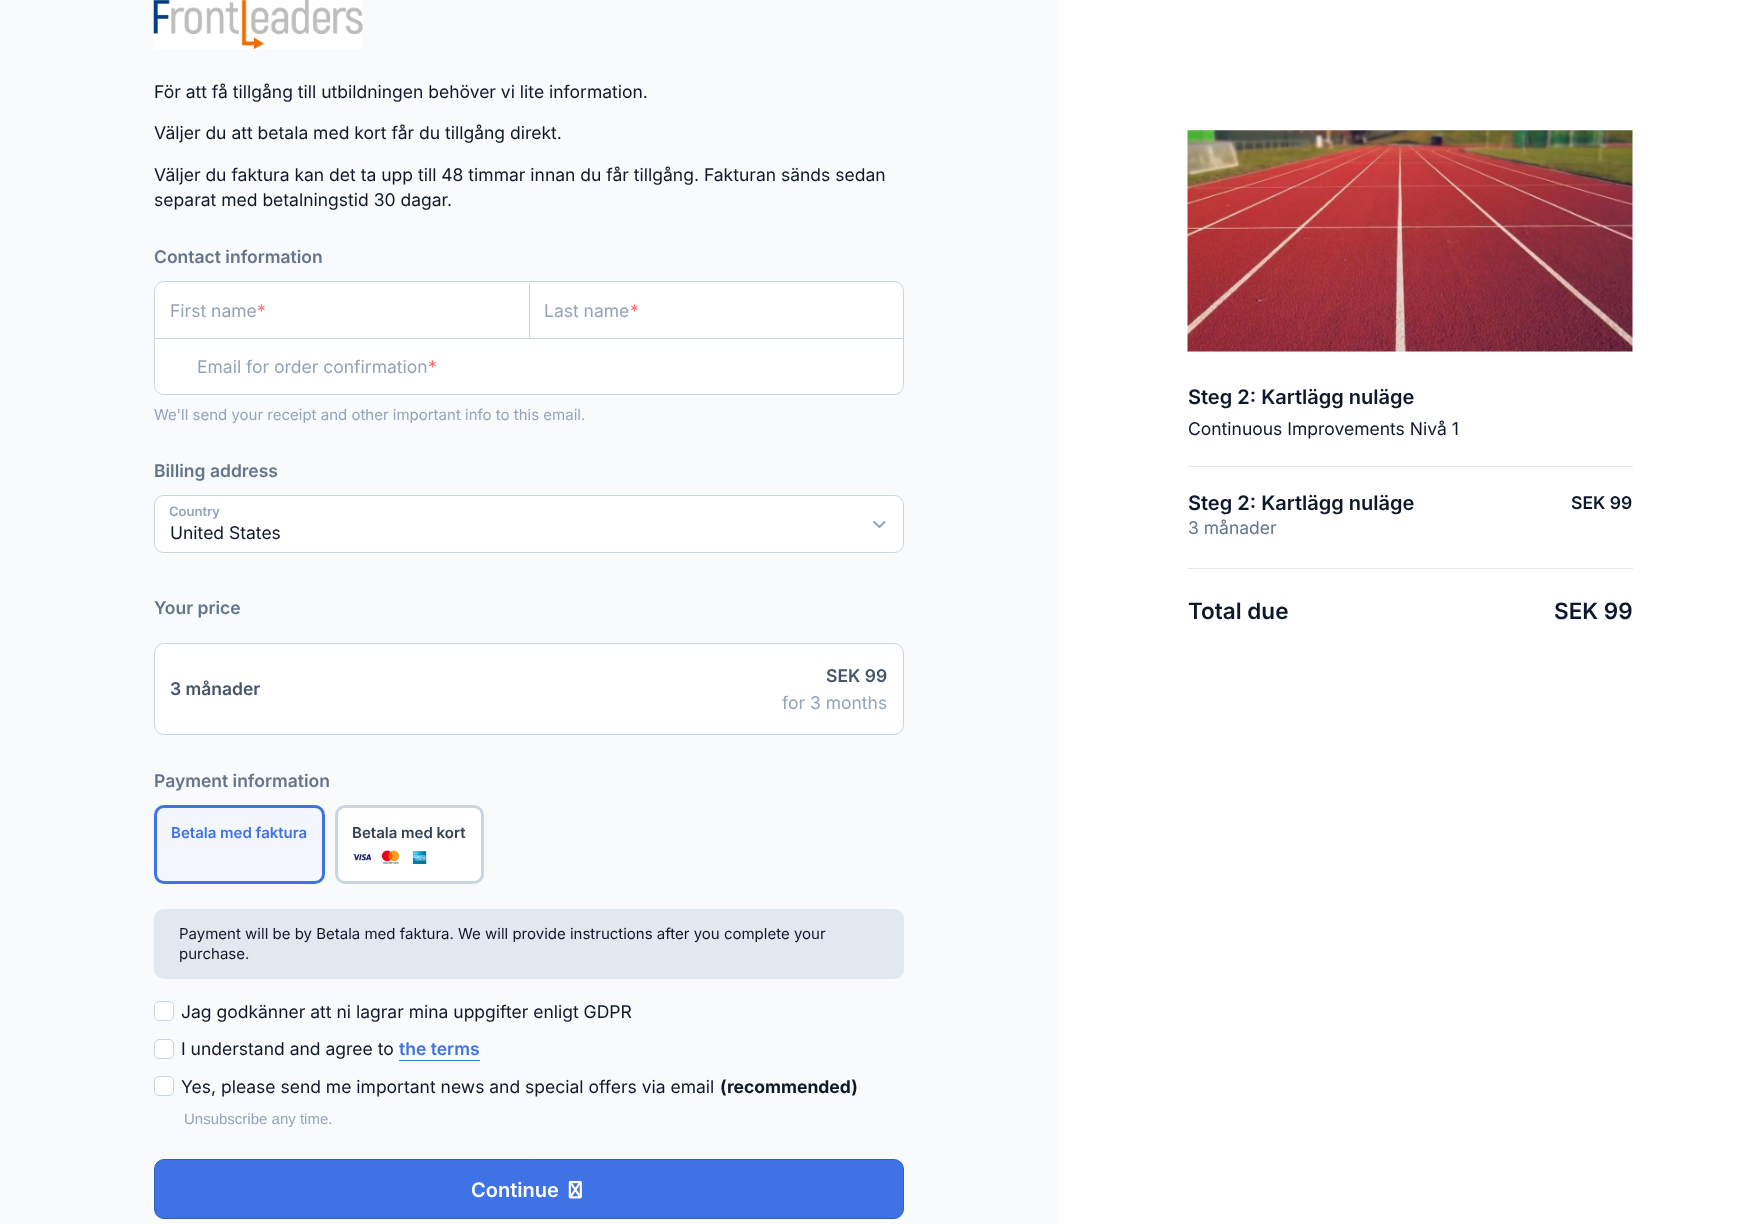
(async () => {
  const canvas = document.querySelector("canvas");
  canvas.width = 1762;
  canvas.height = 1224;
  const ctx = canvas.getContext("2d");
  ctx.miterLimit = 4;
  ctx.fontKerning = "normal";
  async function loadImage(src) {
    const img = new Image();
    img.src = src;
    await img.decode();
    return img;
  }
  let path;

  ctx.fillStyle = "#ffffff";
  ctx.fillRect(0, 0, 1762, 1224);
  ctx.fillStyle = "#f8fafc";
  ctx.fillRect(0, 0, 1058, 1224);
  ctx.drawImage(await loadImage("img/1.png"), 153, 0, 210, 49);
  ctx.fillStyle = "#ffffff";
  ctx.beginPath();
  ctx.roundRect(154.5, 281.5, 749, 113, 9.5);
  ctx.fill();
  ctx.strokeStyle = "#cbd5e1";
  ctx.stroke();
  ctx.beginPath();
  ctx.roundRect(155, 283, 374, 55, 10);
  ctx.fill();
  ctx.fillStyle = "#cbd5e1";
  ctx.fillRect(529, 283, 1, 55);
  ctx.fillStyle = "#ffffff";
  ctx.beginPath();
  ctx.roundRect(530, 283, 373, 55, 10);
  ctx.fill();
  ctx.fillStyle = "#cbd5e1";
  ctx.fillRect(155, 338, 748, 1);
  ctx.fillStyle = "#ffffff";
  ctx.beginPath();
  ctx.roundRect(155, 339, 748, 55, 10);
  ctx.fill();
  ctx.beginPath();
  ctx.roundRect(198, 339, 705, 55, [0, 10, 10, 0]);
  ctx.fill();
  ctx.beginPath();
  ctx.roundRect(154.5, 495.5, 749, 57, 9.5);
  ctx.fill();
  ctx.stroke();
  ctx.beginPath();
  ctx.roundRect(155, 496, 748, 55, 10);
  ctx.fill();
  path = new Path2D("M874 522L879.5 527L884.5 522");
  ctx.strokeStyle = "#94a3b8";
  ctx.lineWidth = 2;
  ctx.lineCap = "round";
  ctx.lineJoin = "round";
  ctx.stroke(path);
  ctx.beginPath();
  ctx.roundRect(154.5, 643.5, 749, 91, 9.5);
  ctx.fill();
  ctx.strokeStyle = "#cbd5e1";
  ctx.lineWidth = 1;
  ctx.lineJoin = "miter";
  ctx.stroke();
  ctx.fillStyle = "#f3f7fd";
  ctx.beginPath();
  ctx.roundRect(155.5, 806.5, 168, 76, 8.5);
  ctx.fill();
  ctx.strokeStyle = "#3f73e5";
  ctx.lineWidth = 3;
  ctx.stroke();
  ctx.fillStyle = "#ffffff";
  ctx.beginPath();
  ctx.roundRect(336.5, 806.5, 146, 76, 8.5);
  ctx.fill();
  ctx.strokeStyle = "#cbd5e1";
  ctx.stroke();
  ctx.drawImage(await loadImage("img/2.png"), 353, 854, 18, 7);
  ctx.drawImage(await loadImage("img/3.png"), 381, 850, 18, 14);
  ctx.drawImage(await loadImage("img/4.png"), 411, 851, 16, 13);
  ctx.fillStyle = "#e2e8f0";
  ctx.beginPath();
  ctx.roundRect(154, 909, 750, 70, 10);
  ctx.fill();
  ctx.fillStyle = "#ffffff";
  ctx.beginPath();
  ctx.roundRect(154.5, 1001.5, 19, 19, 4.5);
  ctx.fill();
  ctx.lineWidth = 1;
  ctx.stroke();
  ctx.beginPath();
  ctx.roundRect(154.5, 1039.5, 19, 19, 4.5);
  ctx.fill();
  ctx.stroke();
  ctx.fillStyle = "#3f73e5";
  ctx.fillRect(399, 1060, 81, 1);
  ctx.fillStyle = "#ffffff";
  ctx.beginPath();
  ctx.roundRect(154.5, 1076.5, 19, 19, 4.5);
  ctx.fill();
  ctx.stroke();
  ctx.fillStyle = "#3f73e5";
  ctx.beginPath();
  ctx.roundRect(154.5, 1159.5, 749, 59, 9.5);
  ctx.fill();
  ctx.strokeStyle = "#345ebc";
  ctx.stroke();
  ctx.drawImage(await loadImage("img/5.png"), 568, 1180, 14, 19);
  ctx.drawImage(await loadImage("img/6.png"), 1187, 130, 446, 222);
  ctx.fillStyle = "#e2e8f0";
  ctx.fillRect(1188, 466, 445, 1);
  ctx.fillRect(1188, 568, 445, 1);
  ctx.font = "17.5px Inter";
  ctx.fillStyle = "#0f172a";
  for (const [text, x, y] of [
    ["För att få tillgång till utbildningen behöver vi lite information.", 154, 98],
    ["Väljer du att betala med kort får du tillgång direkt.", 154, 139],
    ["Väljer du faktura kan det ta upp till 48 timmar innan du får tillgång. Fakturan sänds sedan", 154, 181],
    ["separat med betalningstid 30 dagar.", 154, 206],
  ]) {
    ctx.fillText(text, x, y);
  }
  ctx.font = "600 17.5px Inter";
  ctx.fillStyle = "#64748b";
  ctx.fillText("Contact information", 154, 263);
  ctx.font = "17.5px Inter";
  ctx.fillStyle = "#94a3b8";
  ctx.fillText("First name", 170, 317);
  ctx.fillStyle = "#f87171";
  ctx.fillText("*", 257, 317);
  ctx.fillStyle = "#94a3b8";
  ctx.fillText("Last name", 544, 317);
  ctx.fillStyle = "#f87171";
  ctx.fillText("*", 630, 317);
  ctx.fillStyle = "#94a3b8";
  ctx.fillText("Email for order confirmation", 197, 373);
  ctx.fillStyle = "#f87171";
  ctx.fillText("*", 428, 373);
  ctx.font = "15px Inter";
  ctx.fillStyle = "#94a3b8";
  ctx.fillText("We'll send your receipt and other important info to this email.", 154, 420);
  ctx.font = "600 17.5px Inter";
  ctx.fillStyle = "#64748b";
  ctx.fillText("Billing address", 154, 477);
  ctx.font = "600 13px Inter";
  ctx.fillStyle = "#94a3b8";
  ctx.fillText("Country", 169, 516);
  ctx.font = "17.5px Inter";
  ctx.fillStyle = "#0f172a";
  ctx.fillText("United States", 170, 539);
  ctx.font = "600 17.5px Inter";
  ctx.fillStyle = "#64748b";
  ctx.fillText("Your price", 154, 614);
  ctx.fillStyle = "#475569";
  ctx.fillText("3 månader", 170, 695);
  ctx.fillText("SEK 99", 826, 682);
  ctx.font = "17.5px Inter";
  ctx.fillStyle = "#94a3b8";
  ctx.fillText("for 3 months", 782, 709);
  ctx.font = "600 17.5px Inter";
  ctx.fillStyle = "#64748b";
  ctx.fillText("Payment information", 154, 787);
  ctx.font = "600 15px Inter";
  ctx.fillStyle = "#3f73e5";
  ctx.fillText("Betala med faktura", 171, 838);
  ctx.fillStyle = "#334155";
  ctx.fillText("Betala med kort", 352, 838);
  ctx.font = "15px Inter";
  ctx.fillStyle = "#0f172a";
  ctx.fillText("Payment will be by Betala med faktura. We will provide instructions after you complete your", 179, 939);
  ctx.fillText("purchase.", 179, 959);
  ctx.font = "17.5px Inter";
  ctx.fillText("Jag godkänner att ni lagrar mina uppgifter enligt GDPR", 181, 1018);
  ctx.fillText("I understand and agree to", 181, 1055);
  ctx.font = "600 17.5px Inter";
  ctx.fillStyle = "#3f73e5";
  ctx.fillText("the terms", 399, 1055);
  ctx.font = "17.5px Inter";
  ctx.fillStyle = "#0f172a";
  ctx.fillText("Yes, please send me important news and special offers via email", 181, 1093);
  ctx.font = "bold 17.5px Inter";
  ctx.fillText("(recommended)", 720, 1093);
  ctx.font = "15px Liberation Sans";
  ctx.fillStyle = "#94a3b8";
  ctx.fillText("Unsubscribe any time.", 184, 1124);
  ctx.font = "600 20px Inter";
  ctx.fillStyle = "#ffffff";
  ctx.fillText("Continue", 471, 1197);
  ctx.fillStyle = "#0f172a";
  ctx.fillText("Steg 2: Kartlägg nuläge", 1188, 404);
  ctx.font = "17.5px Inter";
  ctx.fillText("Continuous Improvements Nivå 1", 1188, 435);
  ctx.font = "600 20px Inter";
  ctx.fillText("Steg 2: Kartlägg nuläge", 1188, 510);
  ctx.font = "17.5px Inter";
  ctx.fillStyle = "#64748b";
  ctx.fillText("3 månader", 1188, 534);
  ctx.font = "600 17.5px Inter";
  ctx.fillStyle = "#0f172a";
  ctx.fillText("SEK 99", 1571, 509);
  ctx.font = "600 22.5px Inter";
  ctx.fillText("Total due", 1188, 619);
  ctx.fillText("SEK 99", 1554, 619);
})();
